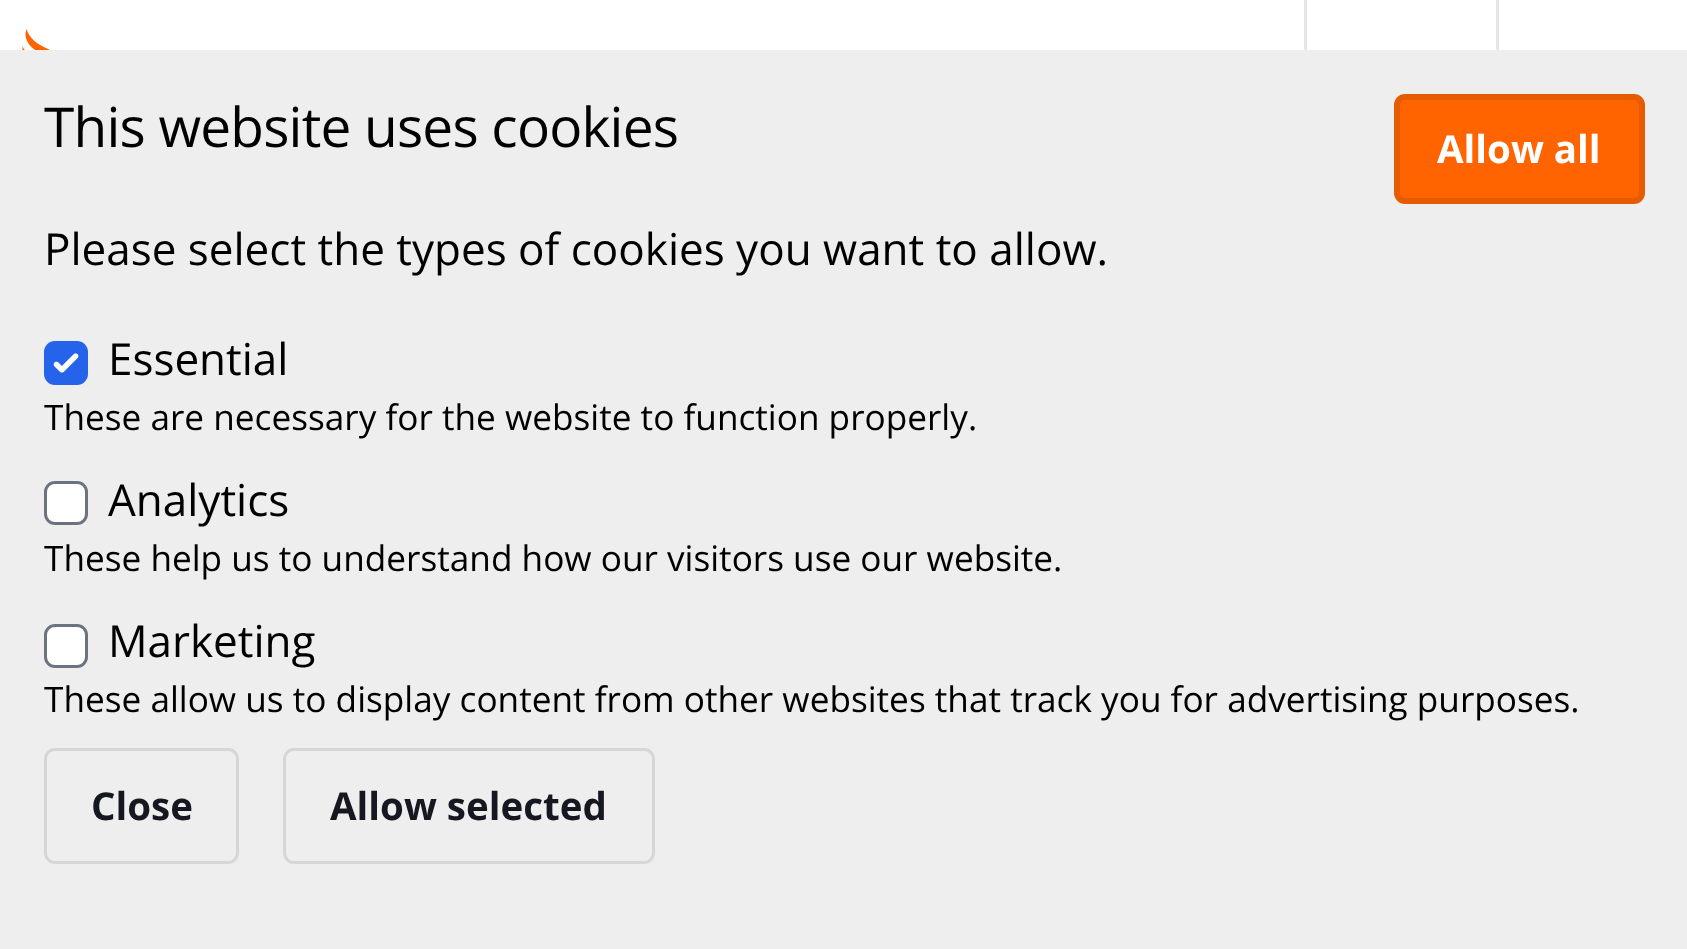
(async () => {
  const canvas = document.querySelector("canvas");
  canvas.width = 1687;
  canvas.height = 949;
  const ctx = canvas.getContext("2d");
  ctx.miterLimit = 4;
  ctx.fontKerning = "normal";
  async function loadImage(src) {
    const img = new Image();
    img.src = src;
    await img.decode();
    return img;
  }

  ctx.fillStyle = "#ffffff";
  ctx.fillRect(0, 0, 1687, 949);
  ctx.drawImage(await loadImage("img/1.png"), 22, 29, 28, 21);
  for (const [x, y, w, h, color] of [
    [1304, 0, 3, 50, "#e6e6e6"],
    [1496, 0, 3, 50, "#e6e6e6"],
    [0, 50, 1687, 899, "#eeeeee"],
  ]) {
    ctx.fillStyle = color;
    ctx.fillRect(x, y, w, h);
  }
  ctx.fillStyle = "#ff6400";
  ctx.beginPath();
  ctx.roundRect(1397, 97, 245, 104, 8);
  ctx.fill();
  ctx.strokeStyle = "#e65a00";
  ctx.lineWidth = 6;
  ctx.stroke();
  ctx.fillStyle = "#2563eb";
  ctx.beginPath();
  ctx.roundRect(44, 341, 44, 44, 11);
  ctx.fill();
  ctx.drawImage(await loadImage("img/2.png"), 53, 353, 26, 20);
  ctx.fillStyle = "#ffffff";
  ctx.beginPath();
  ctx.roundRect(45.5, 482.5, 41, 41, 9.5);
  ctx.fill();
  ctx.strokeStyle = "#6b7280";
  ctx.lineWidth = 3;
  ctx.stroke();
  ctx.beginPath();
  ctx.roundRect(45.5, 625.5, 41, 41, 9.5);
  ctx.fill();
  ctx.stroke();
  ctx.beginPath();
  ctx.roundRect(45.5, 749.5, 192, 113, 9.5);
  ctx.strokeStyle = "#d6d6d6";
  ctx.stroke();
  ctx.beginPath();
  ctx.roundRect(284.5, 749.5, 369, 113, 9.5);
  ctx.stroke();
  ctx.letterSpacing = "-0.8px";
  ctx.font = "55px Open Sans";
  ctx.fillStyle = "#000000";
  ctx.fillText("This website uses cookies", 44, 147);
  ctx.letterSpacing = "0px";
  ctx.font = "bold 38.5px Open Sans";
  ctx.fillStyle = "#ffffff";
  ctx.fillText("Allow all", 1437, 163);
  ctx.font = "44px Open Sans";
  ctx.fillStyle = "#000000";
  ctx.fillText("Please select the types of cookies you want to allow.", 44, 265);
  ctx.fillText("Essential", 108, 375);
  ctx.font = "35.2px Open Sans";
  ctx.fillText("These are necessary for the website to function properly.", 44, 430);
  ctx.font = "44px Open Sans";
  ctx.fillText("Analytics", 108, 516);
  ctx.font = "35.2px Open Sans";
  ctx.fillText("These help us to understand how our visitors use our website.", 44, 571);
  ctx.font = "44px Open Sans";
  ctx.fillText("Marketing", 108, 657);
  ctx.font = "35.2px Open Sans";
  ctx.fillText("These allow us to display content from other websites that track you for advertising purposes.", 44, 712);
  ctx.font = "bold 38.5px Open Sans";
  ctx.fillStyle = "#151721";
  ctx.fillText("Close", 91, 820);
  ctx.fillText("Allow selected", 330, 820);
})();
